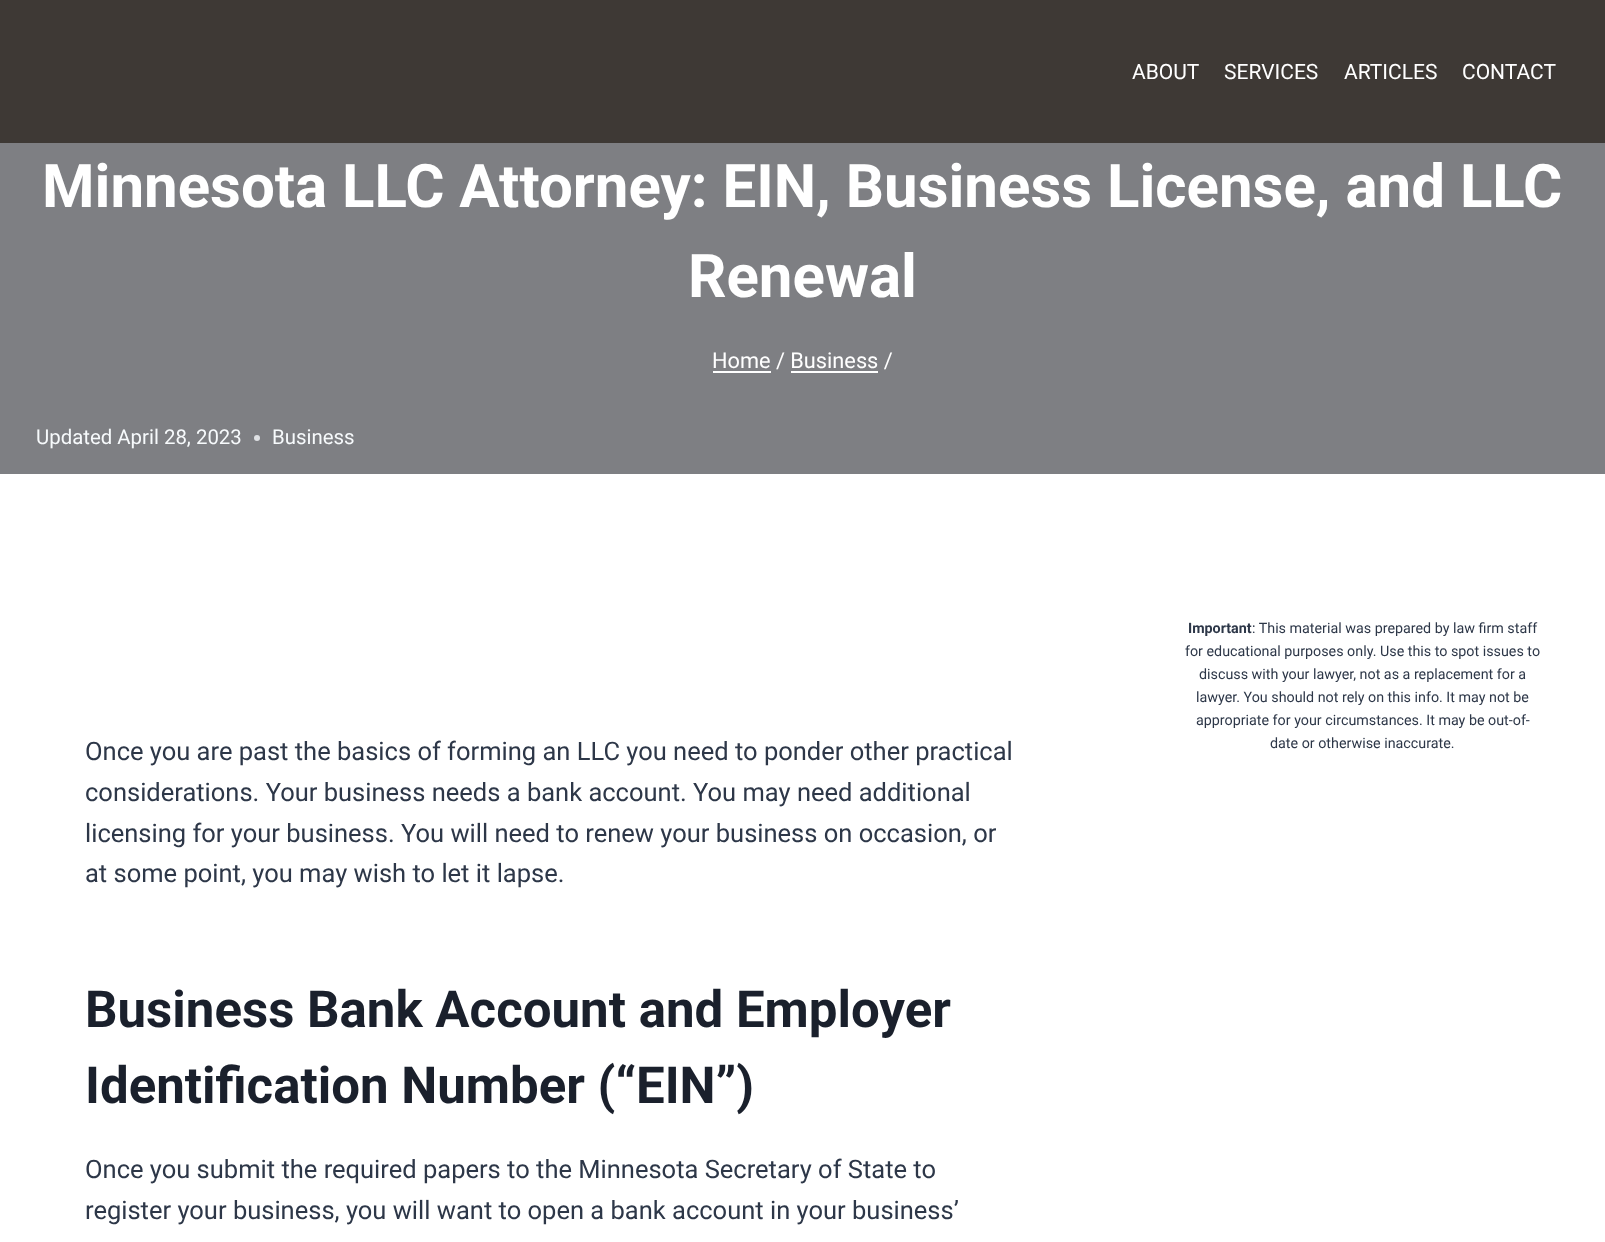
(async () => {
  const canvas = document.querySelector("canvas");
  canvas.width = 1605;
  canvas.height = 1242;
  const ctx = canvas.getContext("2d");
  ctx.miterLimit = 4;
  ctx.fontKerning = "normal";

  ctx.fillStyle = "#ffffff";
  ctx.fillRect(0, 0, 1605, 1242);
  for (const [x, y, w, h, color] of [
    [0, 0, 1605, 143, "#3e3935"],
    [0, 143, 1605, 331, "#7e7f83"],
    [713, 371, 58, 2, "#ffffff"],
    [791, 371, 87, 2, "#ffffff"],
  ]) {
    ctx.fillStyle = color;
    ctx.fillRect(x, y, w, h);
  }
  ctx.fillStyle = "#dfe1e4";
  ctx.beginPath();
  ctx.arc(257, 438, 3, 0, Math.PI * 2);
  ctx.fill();
  ctx.font = "21px Roboto";
  ctx.fillStyle = "#ffffff";
  for (const [text, x, y] of [
    ["ABOUT", 1132, 79],
    ["SERVICES", 1224, 79],
    ["ARTICLES", 1344, 79],
    ["CONTACT", 1462, 79],
  ]) {
    ctx.fillText(text, x, y);
  }
  ctx.font = "bold 60px Roboto";
  ctx.fillText("Minnesota LLC Attorney: EIN, Business License, and LLC", 42, 207);
  ctx.fillText("Renewal", 688, 297);
  ctx.font = "21.75px Roboto";
  ctx.fillText("Home / Business /", 712, 368);
  ctx.font = "20.4px Roboto";
  ctx.fillStyle = "#f7fafc";
  ctx.fillText("Updated April 28, 2023", 36, 444);
  ctx.fillText("Business", 272, 444);
  ctx.font = "bold 14.3px Roboto";
  ctx.fillStyle = "#2d3748";
  ctx.fillText("Important", 1188, 633);
  ctx.font = "14.3px Roboto";
  for (const [text, x, y] of [
    [": This material was prepared by law firm staff", 1252, 633],
    ["for educational purposes only. Use this to spot issues to", 1185, 656],
    ["discuss with your lawyer, not as a replacement for a", 1199, 679],
    ["lawyer. You should not rely on this info. It may not be", 1196, 702],
    ["appropriate for your circumstances. It may be out-of-", 1196, 725],
    ["date or otherwise inaccurate.", 1270, 748],
  ]) {
    ctx.fillText(text, x, y);
  }
  ctx.font = "25.5px Roboto";
  for (const [text, x, y] of [
    ["Once you are past the basics of forming an LLC you need to ponder other practical", 85, 760],
    ["considerations. Your business needs a bank account. You may need additional", 85, 801],
    ["licensing for your business. You will need to renew your business on occasion, or", 85, 842],
    ["at some point, you may wish to let it lapse.", 85, 882],
  ]) {
    ctx.fillText(text, x, y);
  }
  ctx.font = "bold 51px Roboto";
  ctx.fillStyle = "#1a202c";
  ctx.fillText("Business Bank Account and Employer", 85, 1027);
  ctx.fillText("Identification Number (“EIN”)", 85, 1103);
  ctx.font = "25.5px Roboto";
  ctx.fillStyle = "#2d3748";
  ctx.fillText("Once you submit the required papers to the Minnesota Secretary of State to", 85, 1178);
  ctx.fillText("register your business, you will want to open a bank account in your business’", 85, 1219);
})();
